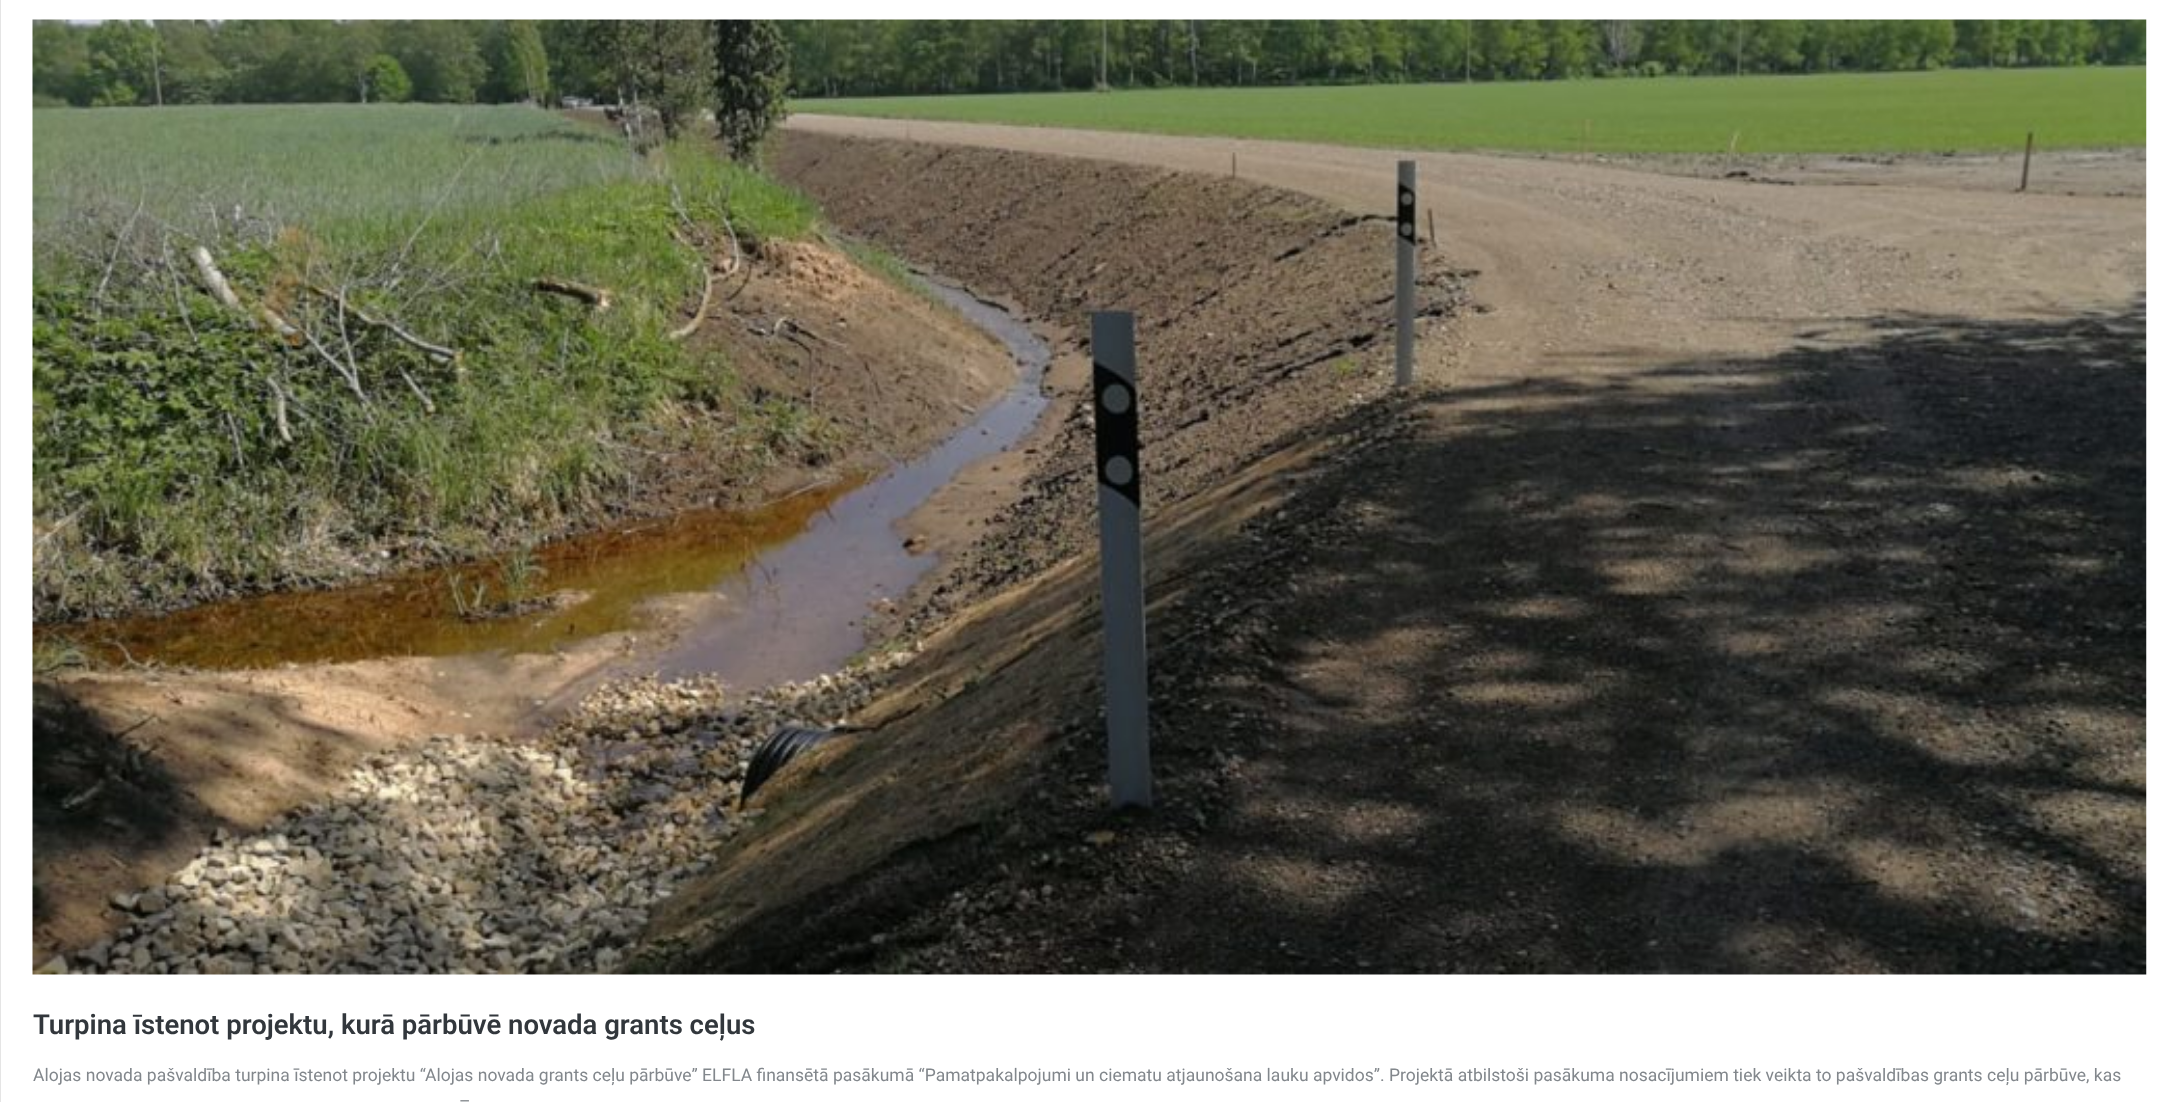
(async () => {
  const canvas = document.querySelector("canvas");
  canvas.width = 2178;
  canvas.height = 1102;
  const ctx = canvas.getContext("2d");
  ctx.miterLimit = 4;
  ctx.fontKerning = "normal";
  async function loadImage(src) {
    const img = new Image();
    img.src = src;
    await img.decode();
    return img;
  }

  ctx.fillStyle = "#ffffff";
  ctx.fillRect(0, 0, 2178, 1102);
  ctx.strokeStyle = "#e5e5e5";
  ctx.strokeRect(0.5, -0.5, 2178, 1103);
  ctx.drawImage(await loadImage("img/1.png"), 32, 19, 2115, 956);
  ctx.font = "600 27.5px Roboto";
  ctx.fillStyle = "#32373c";
  ctx.fillText("Turpina īstenot projektu, kurā pārbūvē novada grants ceļus", 33, 1034);
  ctx.font = "17.5px Roboto";
  ctx.fillStyle = "#82878c";
  ctx.fillText("Alojas novada pašvaldība turpina īstenot projektu “Alojas novada grants ceļu pārbūve” ELFLA finansētā pasākumā “Pamatpakalpojumi un ciematu atjaunošana lauku apvidos”. Projektā atbilstoši pasākuma nosacījumiem tiek veikta to pašvaldības grants ceļu pārbūve, kas", 33, 1081);
  ctx.fillText("–", 459, 1107);
})();
